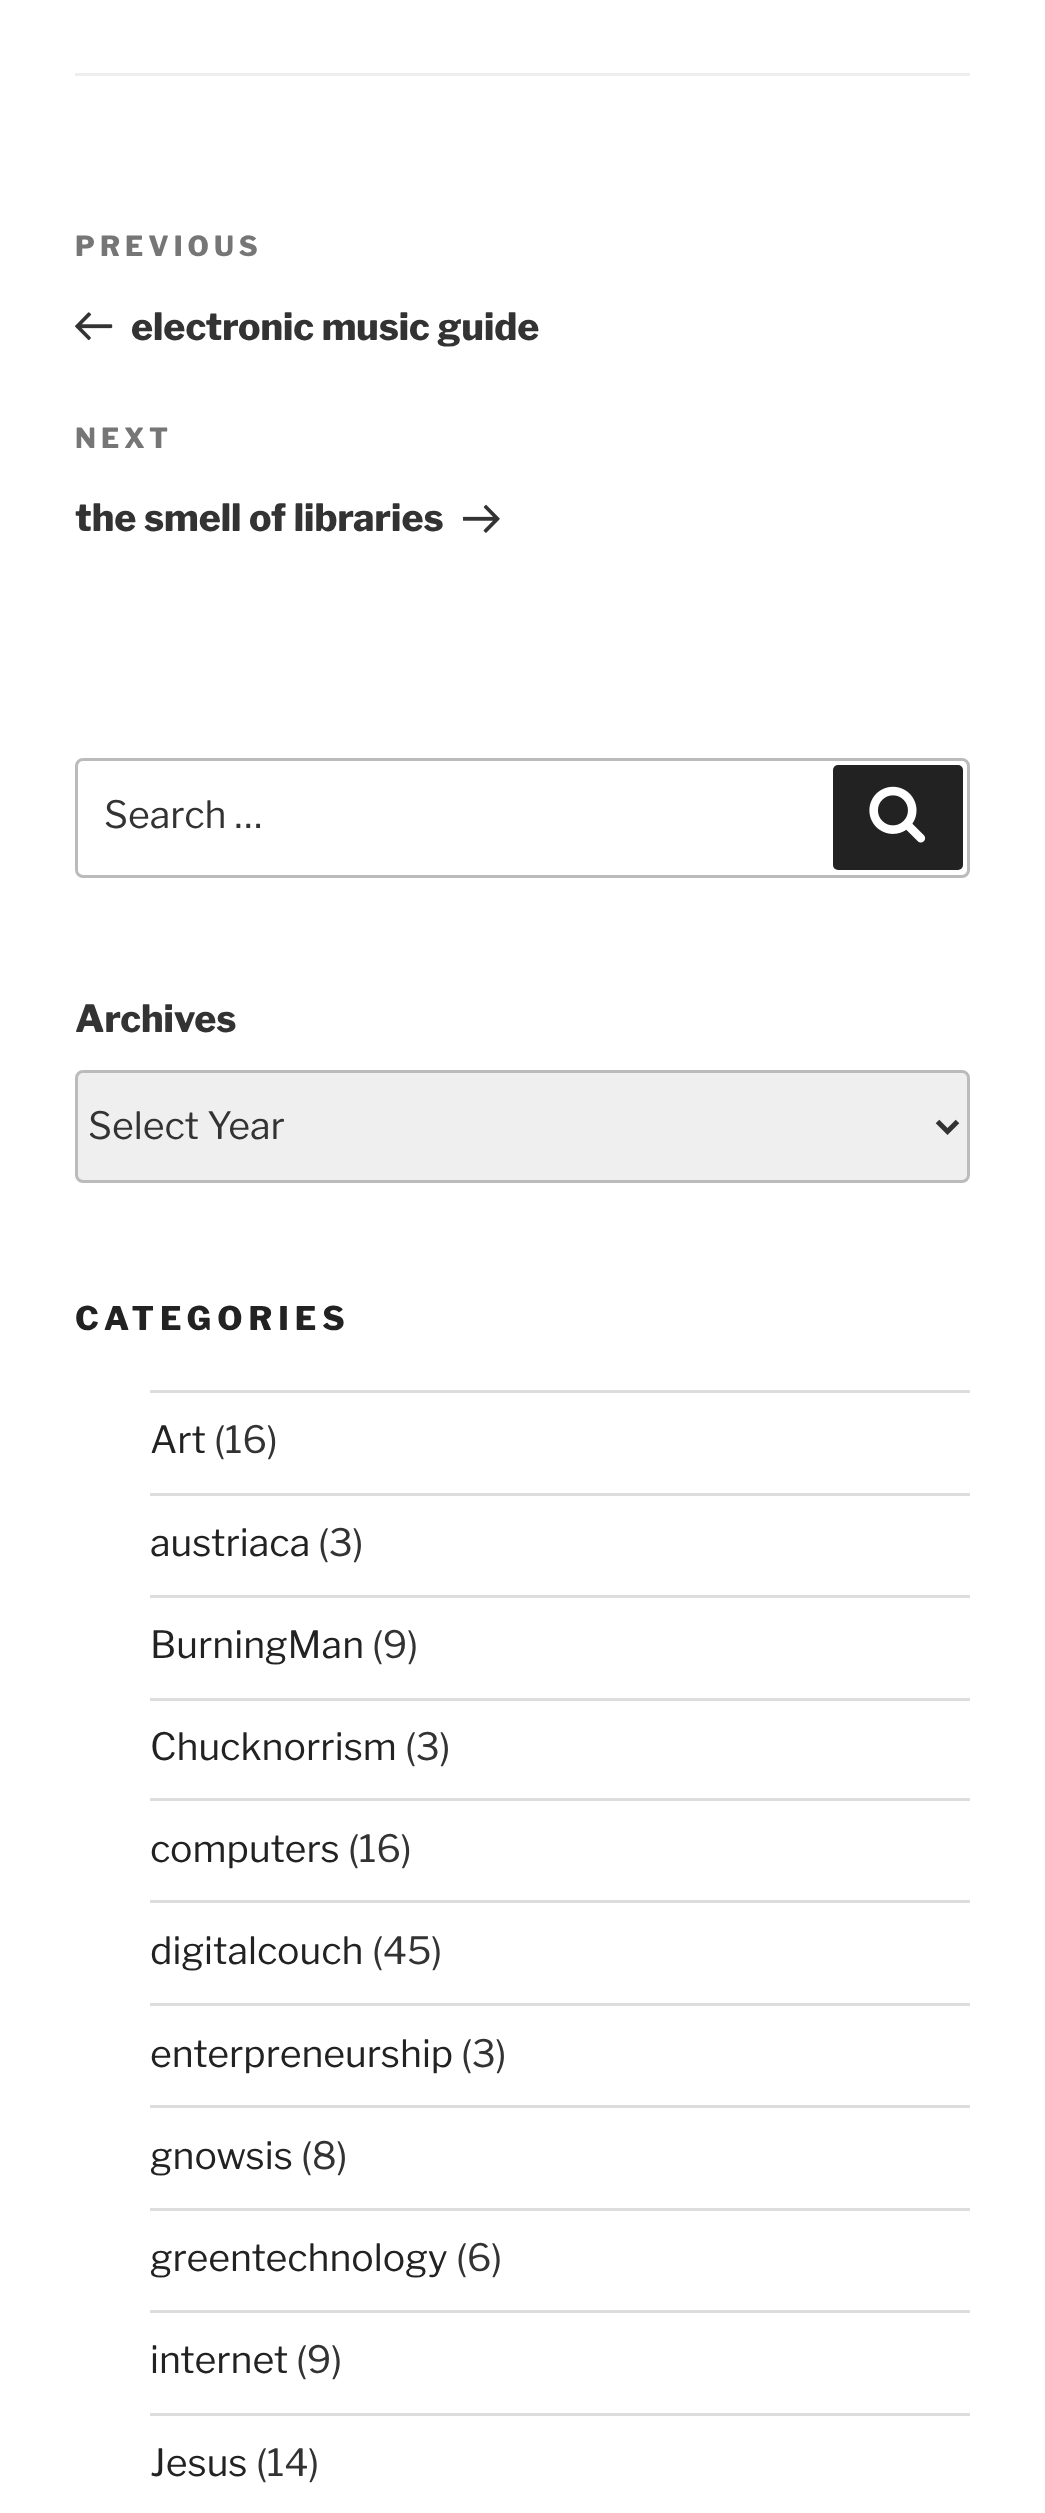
(async () => {
  const canvas = document.querySelector("canvas");
  canvas.width = 1045;
  canvas.height = 2513;
  const ctx = canvas.getContext("2d");
  ctx.miterLimit = 4;
  ctx.fontKerning = "normal";
  async function loadImage(src) {
    const img = new Image();
    img.src = src;
    await img.decode();
    return img;
  }
  let path;

  ctx.fillStyle = "#ffffff";
  ctx.fillRect(0, 0, 1045, 2513);
  ctx.fillStyle = "#eeeeee";
  ctx.fillRect(75, 73, 895, 3);
  ctx.drawImage(await loadImage("img/1.png"), 75, 312, 38, 29);
  ctx.drawImage(await loadImage("img/2.png"), 463, 504, 37, 29);
  ctx.beginPath();
  ctx.roundRect(76.5, 759.5, 892, 117, 6.5);
  ctx.strokeStyle = "#bbbbbb";
  ctx.lineWidth = 3;
  ctx.stroke();
  ctx.fillStyle = "#222222";
  ctx.beginPath();
  ctx.roundRect(833, 765, 130, 105, 5);
  ctx.fill();
  ctx.drawImage(await loadImage("img/3.png"), 869, 786, 57, 57);
  ctx.fillStyle = "#efefef";
  ctx.beginPath();
  ctx.roundRect(76.5, 1071.5, 892, 110, 6.5);
  ctx.fill();
  ctx.stroke();
  path = new Path2D("M937.5 1121.5L947.5 1131.5L957.5 1121.5");
  ctx.strokeStyle = "#333333";
  ctx.lineWidth = 5;
  ctx.stroke(path);
  for (const [x, y, w, h, color] of [
    [150, 1390, 820, 3, "#dddddd"],
    [150, 1493, 820, 3, "#dddddd"],
    [150, 1595, 820, 3, "#dddddd"],
    [150, 1698, 820, 3, "#dddddd"],
    [150, 1798, 820, 3, "#dddddd"],
    [150, 1900, 820, 3, "#dddddd"],
    [150, 2003, 820, 3, "#dddddd"],
    [150, 2105, 820, 3, "#dddddd"],
    [150, 2208, 820, 3, "#dddddd"],
    [150, 2310, 820, 3, "#dddddd"],
    [150, 2413, 820, 3, "#dddddd"],
  ]) {
    ctx.fillStyle = color;
    ctx.fillRect(x, y, w, h);
  }
  ctx.letterSpacing = "5px";
  ctx.font = "100 27.5px Libre Franklin";
  ctx.fillStyle = "#767676";
  ctx.fillText("PREVIOUS", 75, 256);
  ctx.letterSpacing = "0px";
  ctx.font = "100 37.5px Libre Franklin";
  ctx.fillStyle = "#333333";
  ctx.fillText("electronic music guide", 131, 340);
  ctx.letterSpacing = "5px";
  ctx.font = "100 27.5px Libre Franklin";
  ctx.fillStyle = "#767676";
  ctx.fillText("NEXT", 75, 448);
  ctx.letterSpacing = "0px";
  ctx.font = "100 37.5px Libre Franklin";
  ctx.fillStyle = "#333333";
  ctx.fillText("the smell of libraries", 75, 531);
  ctx.font = "100 37.5px 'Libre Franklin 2'";
  ctx.fillText("Search …", 104, 828);
  ctx.font = "100 37.5px Libre Franklin";
  ctx.fillText("Archives", 75, 1032);
  ctx.font = "100 37.5px 'Libre Franklin 2'";
  ctx.fillText("Select Year", 88, 1139);
  ctx.letterSpacing = "6px";
  ctx.font = "100 32.5px Libre Franklin";
  ctx.fillStyle = "#222222";
  ctx.fillText("CATEGORIES", 75, 1330);
  ctx.letterSpacing = "0px";
  ctx.font = "100 37.5px 'Libre Franklin 2'";
  ctx.fillText("Art", 150, 1453);
  ctx.fillStyle = "#333333";
  ctx.fillText("(16)", 214, 1453);
  ctx.fillStyle = "#222222";
  ctx.fillText("austriaca", 150, 1556);
  ctx.fillStyle = "#333333";
  ctx.fillText("(3)", 318, 1556);
  ctx.fillStyle = "#222222";
  ctx.fillText("BurningMan", 150, 1658);
  ctx.fillStyle = "#333333";
  ctx.fillText("(9)", 372, 1658);
  ctx.fillStyle = "#222222";
  ctx.fillText("Chucknorrism", 150, 1760);
  ctx.fillStyle = "#333333";
  ctx.fillText("(3)", 405, 1760);
  ctx.fillStyle = "#222222";
  ctx.fillText("computers", 150, 1862);
  ctx.fillStyle = "#333333";
  ctx.fillText("(16)", 348, 1862);
  ctx.fillStyle = "#222222";
  ctx.fillText("digitalcouch", 150, 1964);
  ctx.fillStyle = "#333333";
  ctx.fillText("(45)", 372, 1964);
  ctx.fillStyle = "#222222";
  ctx.fillText("enterpreneurship", 150, 2067);
  ctx.fillStyle = "#333333";
  ctx.fillText("(3)", 461, 2067);
  ctx.fillStyle = "#222222";
  ctx.fillText("gnowsis", 150, 2169);
  ctx.fillStyle = "#333333";
  ctx.fillText("(8)", 301, 2169);
  ctx.fillStyle = "#222222";
  ctx.fillText("greentechnology", 150, 2271);
  ctx.fillStyle = "#333333";
  ctx.fillText("(6)", 456, 2271);
  ctx.fillStyle = "#222222";
  ctx.fillText("internet", 150, 2373);
  ctx.fillStyle = "#333333";
  ctx.fillText("(9)", 296, 2373);
  ctx.fillStyle = "#222222";
  ctx.fillText("Jesus", 150, 2476);
  ctx.fillStyle = "#333333";
  ctx.fillText("(14)", 256, 2476);
})();
